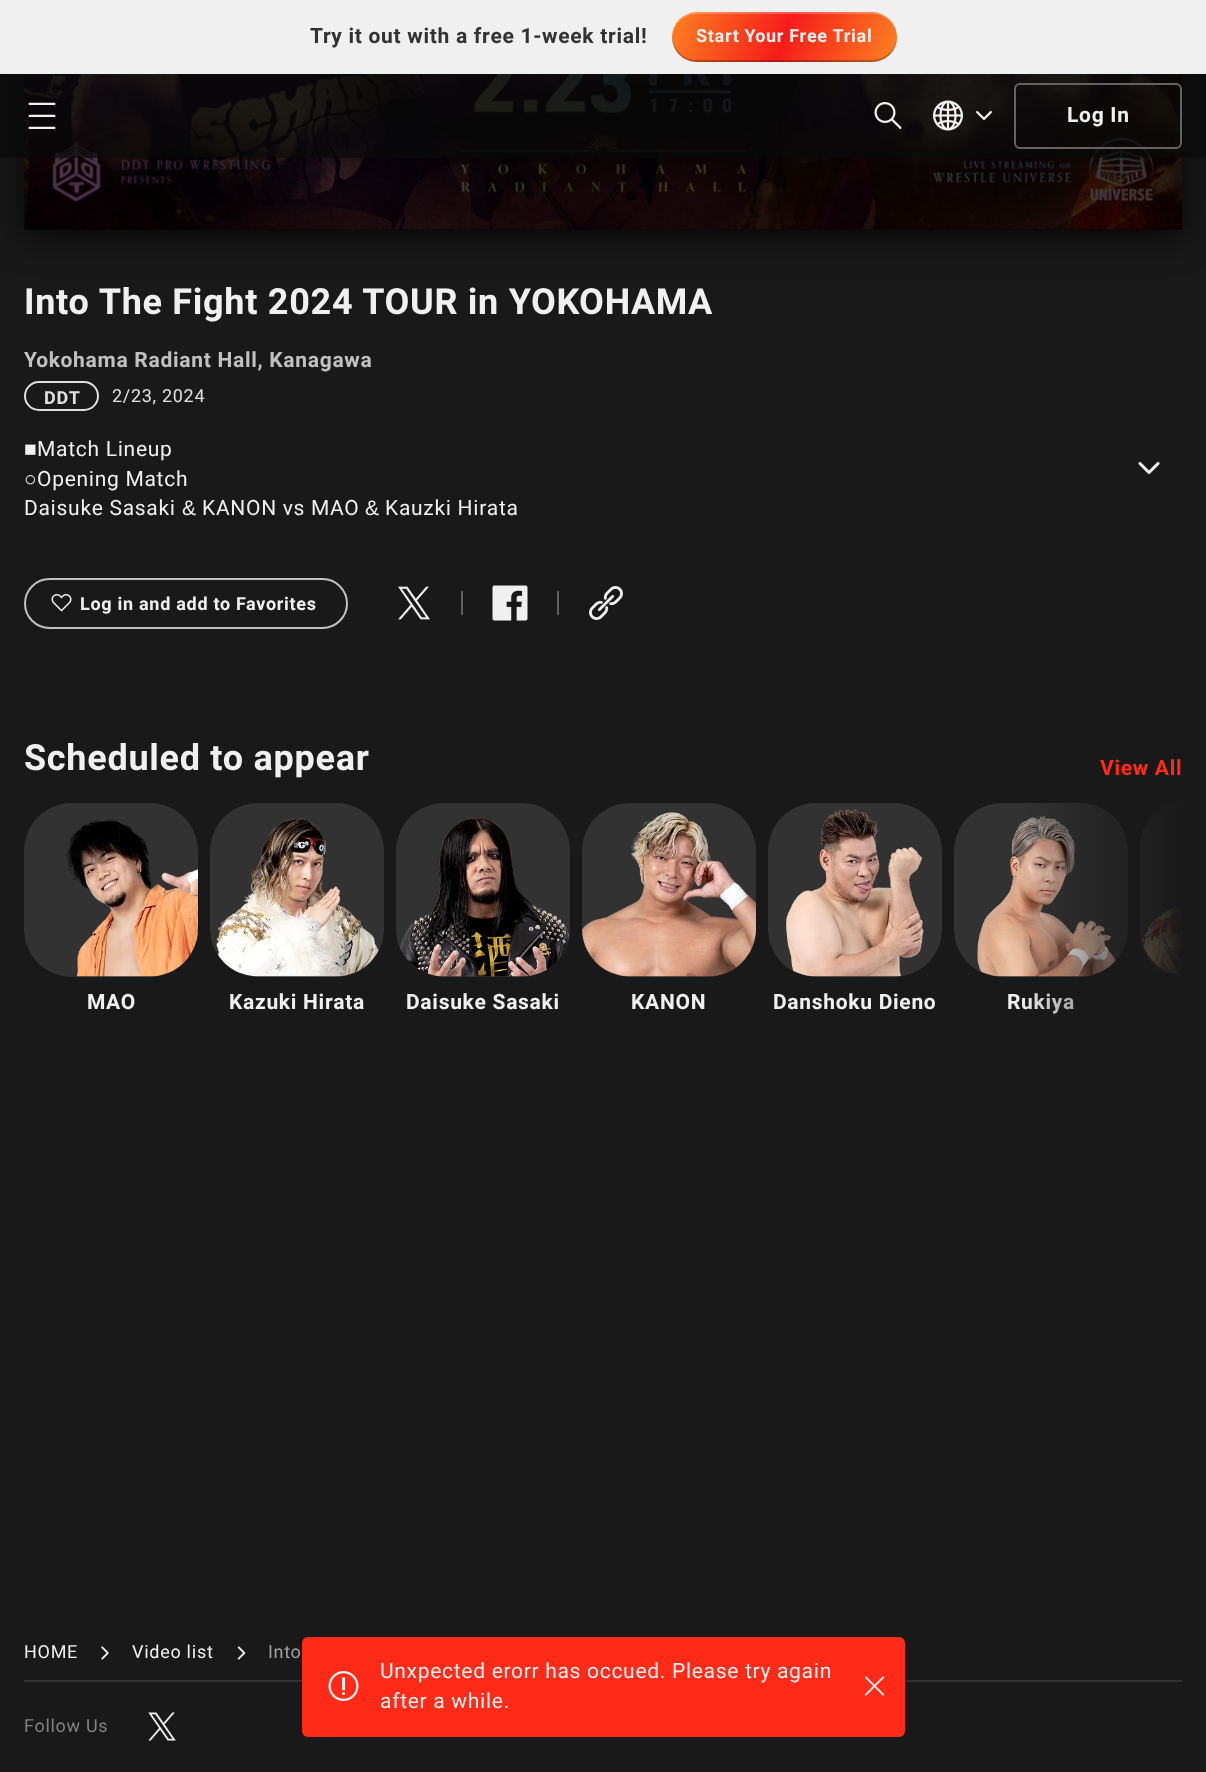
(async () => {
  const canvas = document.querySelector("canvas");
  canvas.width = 1206;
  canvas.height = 1772;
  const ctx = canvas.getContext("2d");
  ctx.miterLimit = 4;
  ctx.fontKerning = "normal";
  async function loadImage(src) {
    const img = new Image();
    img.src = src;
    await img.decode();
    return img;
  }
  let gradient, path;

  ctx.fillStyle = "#191919";
  ctx.fillRect(0, 0, 1206, 1772);
  ctx.fillStyle = "rgba(0, 0, 0, 0.75)";
  ctx.filter = "blur(18px)";
  ctx.beginPath();
  ctx.rect(24, -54, 1158, 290);
  ctx.fill();
  ctx.filter = "none";
  ctx.fillStyle = "#f0f0f0";
  ctx.fillRect(0, 0, 1206, 74);
  gradient = ctx.createLinearGradient(677, -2.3, 892, 76);
  gradient.addColorStop(0, "#fd8221");
  gradient.addColorStop(0.5, "#f51c1a");
  gradient.addColorStop(1, "#fd8221");
  ctx.fillStyle = gradient;
  ctx.beginPath();
  ctx.roundRect(672, 12, 225, 50, 25);
  ctx.fill();
  ctx.fillStyle = "rgba(0, 0, 0, 0.25)";
  path = new Path2D("M672 36V37C672 51 683 62 697 62H872C886 62 897 51 897 37V36C896 50 886 60 872 60H697C683 60 673 50 672 36Z");
  ctx.fill(path);
  ctx.fillStyle = "rgba(255, 255, 255, 0.25)";
  path = new Path2D("M697 14H872C886 14 897 25 897 38V37C897 23 886 12 872 12H697C683 12 672 23 672 37V38C672 25 683 14 697 14Z");
  ctx.fill(path);
  ctx.drawImage(await loadImage("img/5.png"), 24, 74, 1158, 156);
  ctx.fillStyle = "rgba(0, 0, 0, 0.7)";
  ctx.fillRect(24, 74, 1158, 156);
  ctx.fillStyle = "rgba(10, 10, 10, 0.7)";
  ctx.fillRect(0, 74, 1206, 84);
  ctx.drawImage(await loadImage("img/1.png"), 28, 102, 28, 27);
  ctx.drawImage(await loadImage("img/2.png"), 874, 102, 28, 27);
  ctx.drawImage(await loadImage("img/3.png"), 933, 100, 30, 31);
  ctx.drawImage(await loadImage("img/4.png"), 976, 111, 16, 9);
  ctx.beginPath();
  ctx.roundRect(1015, 84, 166, 64, 5);
  ctx.strokeStyle = "#636363";
  ctx.lineWidth = 2;
  ctx.stroke();
  ctx.beginPath();
  ctx.roundRect(25, 382, 73, 28, 14);
  ctx.strokeStyle = "#e0e0e0";
  ctx.stroke();
  ctx.drawImage(await loadImage("img/6.png"), 1138, 462, 22, 12);
  ctx.beginPath();
  ctx.roundRect(25, 579, 322, 49, 24.5);
  ctx.strokeStyle = "#c1c1c1";
  ctx.stroke();
  ctx.drawImage(await loadImage("img/7.png"), 51, 594, 21, 18);
  ctx.drawImage(await loadImage("img/8.png"), 398, 586, 32, 34);
  ctx.fillStyle = "#636363";
  ctx.fillRect(461, 591, 2, 24);
  ctx.drawImage(await loadImage("img/9.png"), 492, 585, 36, 36);
  ctx.fillRect(557, 591, 2, 24);
  ctx.drawImage(await loadImage("img/10.png"), 589, 586, 34, 34);
  ctx.fillStyle = "#323232";
  ctx.beginPath();
  ctx.roundRect(1140, 803, 42, 174, [48, 0, 0, 48]);
  ctx.fill();
  ctx.drawImage(await loadImage("img/11.png"), 1141, 906, 41, 71);
  ctx.beginPath();
  ctx.roundRect(24, 803, 174, 174, 48);
  ctx.fill();
  ctx.drawImage(await loadImage("img/12.png"), 67, 819, 131, 158);
  ctx.beginPath();
  ctx.roundRect(210, 803, 174, 174, 48);
  ctx.fill();
  ctx.drawImage(await loadImage("img/13.png"), 216, 818, 163, 159);
  ctx.beginPath();
  ctx.roundRect(396, 803, 174, 174, 48);
  ctx.fill();
  ctx.drawImage(await loadImage("img/14.png"), 400, 818, 170, 159);
  ctx.beginPath();
  ctx.roundRect(582, 803, 174, 174, 48);
  ctx.fill();
  ctx.drawImage(await loadImage("img/15.png"), 582, 812, 174, 165);
  ctx.beginPath();
  ctx.roundRect(768, 803, 174, 174, 48);
  ctx.fill();
  ctx.drawImage(await loadImage("img/16.png"), 786, 809, 138, 168);
  ctx.beginPath();
  ctx.roundRect(954, 803, 174, 174, 48);
  ctx.fill();
  ctx.drawImage(await loadImage("img/17.png"), 977, 816, 139, 161);
  ctx.fillRect(24, 1680, 1158, 2);
  ctx.drawImage(await loadImage("img/18.png"), 101, 1646, 8, 14);
  ctx.drawImage(await loadImage("img/19.png"), 237, 1646, 9, 14);
  ctx.drawImage(await loadImage("img/20.png"), 148, 1712, 28, 29);
  ctx.fillStyle = "#ff2a17";
  ctx.beginPath();
  ctx.roundRect(302, 1637, 603, 100, 6);
  ctx.fill();
  ctx.drawImage(await loadImage("img/21.png"), 328, 1671, 31, 30);
  ctx.drawImage(await loadImage("img/22.png"), 864, 1676, 21, 20);
  ctx.letterSpacing = "0.7px";
  ctx.font = "bold 21px Heebo";
  ctx.fillStyle = "#323232";
  ctx.fillText("Try it out with a free 1-week trial!", 310, 43);
  ctx.font = "bold 18px Heebo";
  ctx.fillStyle = "#f0f0f0";
  ctx.fillText("Start Your Free Trial", 696, 42);
  ctx.font = "bold 21px Heebo";
  ctx.fillText("Log In", 1067, 122);
  ctx.font = "bold 36px Heebo";
  ctx.fillText("Into The Fight 2024 TOUR in YOKOHAMA", 24, 314);
  ctx.font = "bold 21px Heebo";
  ctx.fillStyle = "#c1c1c1";
  ctx.fillText("Yokohama Radiant Hall, Kanagawa", 24, 367);
  ctx.font = "bold 18px Heebo";
  ctx.fillStyle = "#e0e0e0";
  ctx.fillText("DDT", 44, 404);
  ctx.font = "18px Heebo";
  ctx.fillText("2/23, 2024", 112, 402);
  ctx.font = "21px Liberation Sans";
  ctx.fillStyle = "#f0f0f0";
  ctx.fillText("■", 24, 456);
  ctx.font = "21px Heebo";
  ctx.fillText("Match Lineup", 37, 456);
  ctx.font = "21px Liberation Sans";
  ctx.fillText("○", 24, 486);
  ctx.font = "21px Heebo";
  ctx.fillText("Opening Match", 37, 486);
  ctx.fillText("Daisuke Sasaki", 24, 515);
  ctx.font = "21px Liberation Sans";
  ctx.fillText("&", 182, 515);
  ctx.font = "21px Heebo";
  ctx.fillText("KANON vs MAO", 202, 515);
  ctx.font = "21px Liberation Sans";
  ctx.fillText("&", 365, 515);
  ctx.font = "21px Heebo";
  ctx.fillText("Kauzki Hirata", 385, 515);
  ctx.font = "bold 18px Heebo";
  ctx.fillText("Log in and add to Favorites", 80, 610);
  ctx.font = "bold 36px Heebo";
  ctx.fillText("Scheduled to appear", 24, 770);
  ctx.font = "bold 21px Heebo";
  ctx.fillStyle = "#ff2a17";
  ctx.fillText("View All", 1100, 775);
  ctx.fillStyle = "#f0f0f0";
  for (const [text, x, y] of [
    ["MAO", 87, 1009],
    ["Kazuki Hirata", 229, 1009],
    ["Daisuke Sasaki", 406, 1009],
    ["KANON", 631, 1009],
    ["Danshoku Dieno", 773, 1009],
    ["Rukiya", 1007, 1009],
  ]) {
    ctx.fillText(text, x, y);
  }
  gradient = ctx.createLinearGradient(1184, 926, 1019, 926);
  gradient.addColorStop(0, "#191919");
  gradient.addColorStop(1, "rgba(25, 25, 25, 0)");
  ctx.fillStyle = gradient;
  ctx.fillRect(1023, 803, 160, 211);
  ctx.font = "18px Heebo";
  ctx.fillStyle = "#f0f0f0";
  ctx.fillText("HOME", 24, 1658);
  ctx.fillText("Video list", 132, 1658);
  ctx.fillStyle = "#a1a1a1";
  ctx.fillText("Into", 268, 1658);
  ctx.fillStyle = "#828282";
  ctx.fillText("Follow Us", 24, 1732);
  ctx.font = "21px Heebo";
  ctx.fillStyle = "#f0f0f0";
  ctx.fillText("Unxpected erorr has occued. Please try again", 380, 1678);
  ctx.fillText("after a while.", 380, 1708);
})();
